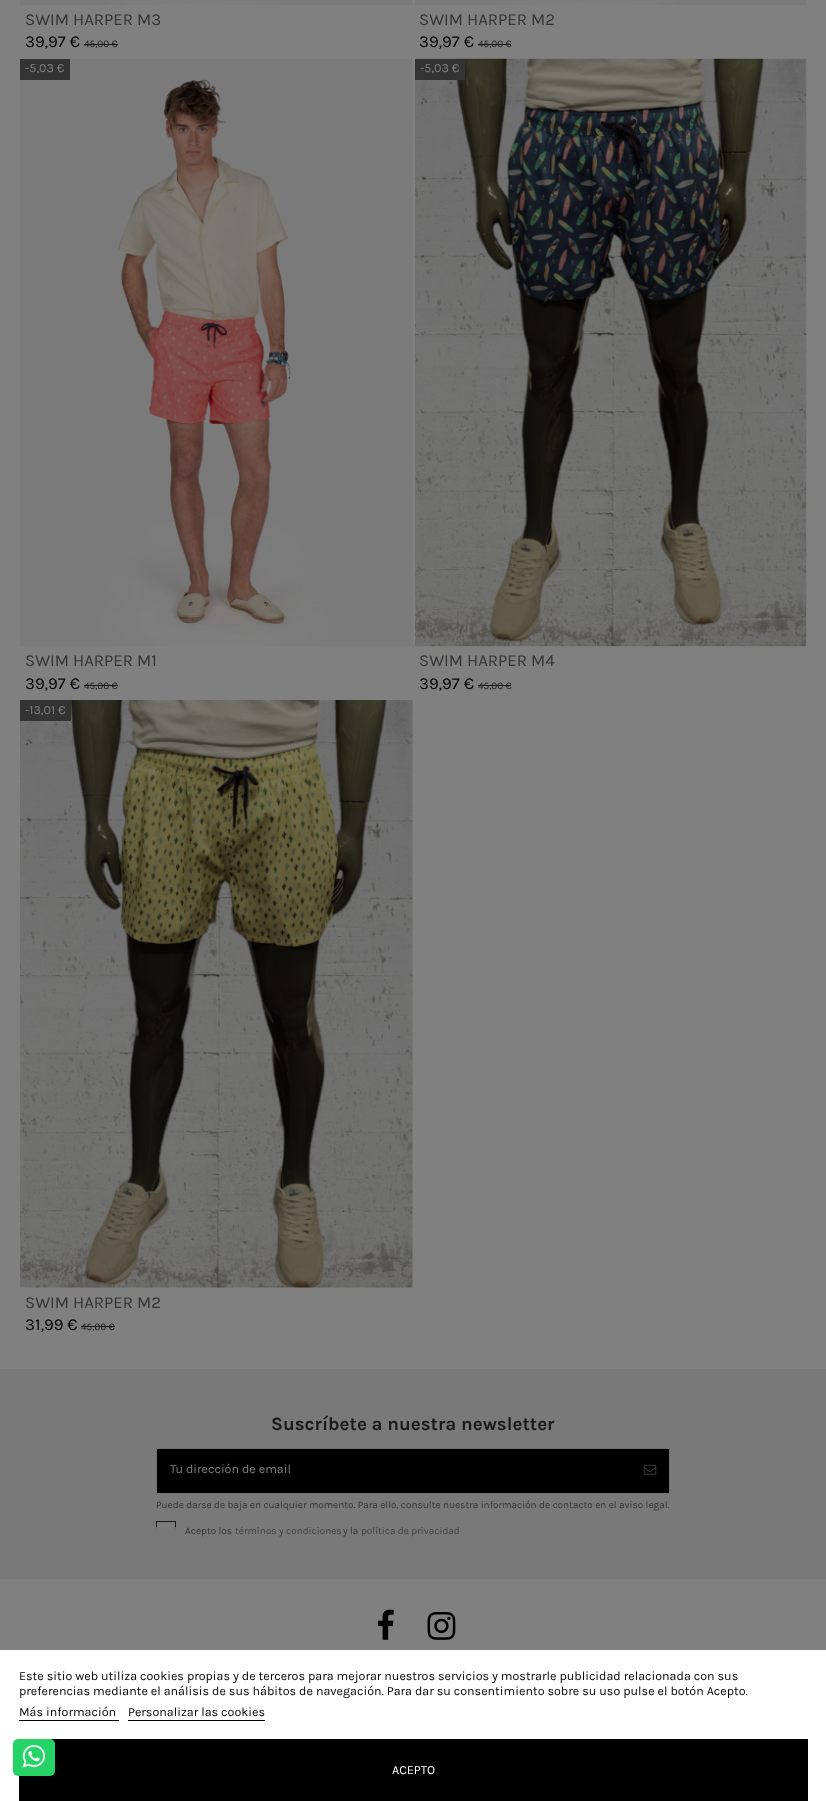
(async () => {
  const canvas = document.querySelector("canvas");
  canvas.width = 826;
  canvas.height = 1801;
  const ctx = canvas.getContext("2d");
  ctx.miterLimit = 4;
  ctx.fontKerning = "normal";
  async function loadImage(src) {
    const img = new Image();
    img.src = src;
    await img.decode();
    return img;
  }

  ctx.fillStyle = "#808080";
  ctx.fillRect(0, 0, 826, 1801);
  ctx.drawImage(await loadImage("img/1.png"), 20, 0, 393, 5);
  ctx.fillStyle = "#1a1a1a";
  ctx.fillRect(84, 44, 34, 1);
  ctx.drawImage(await loadImage("img/2.png"), 415, 0, 391, 5);
  ctx.fillRect(478, 44, 33, 1);
  ctx.drawImage(await loadImage("img/3.png"), 20, 59, 393, 587);
  ctx.fillStyle = "#333333";
  ctx.fillRect(20, 59, 50, 21);
  ctx.fillStyle = "#1a1a1a";
  ctx.fillRect(84, 685, 34, 1);
  ctx.drawImage(await loadImage("img/4.png"), 415, 58, 392, 589);
  ctx.fillStyle = "#333333";
  ctx.fillRect(415, 59, 50, 21);
  ctx.fillStyle = "#1a1a1a";
  ctx.fillRect(478, 685, 33, 1);
  ctx.drawImage(await loadImage("img/5.png"), 20, 700, 393, 588);
  for (const [x, y, w, h, color] of [
    [20, 700, 51, 21, "#333333"],
    [81, 1326, 34, 1, "#1a1a1a"],
    [0, 1369, 826, 210, "#797979"],
  ]) {
    ctx.fillStyle = color;
    ctx.fillRect(x, y, w, h);
  }
  ctx.fillStyle = "#000000";
  ctx.beginPath();
  ctx.rect(156.5, 1448.5, 513, 45);
  ctx.fill();
  ctx.strokeStyle = "#727272";
  ctx.stroke();
  ctx.drawImage(await loadImage("img/6.png"), 643, 1464, 14, 11);
  ctx.fillStyle = "#7e7e7e";
  ctx.fillRect(157, 1522, 18, 5);
  ctx.fillStyle = "#757575";
  ctx.fillRect(158, 1523, 17, 1);
  ctx.strokeStyle = "#181818";
  ctx.strokeRect(156.5, 1521.5, 19, 19);
  ctx.fillStyle = "#797979";
  ctx.beginPath();
  ctx.roundRect(156.5, 1526.5, 19, 19, 2);
  ctx.fill();
  ctx.strokeStyle = "#797979";
  ctx.stroke();
  ctx.drawImage(await loadImage("img/7.png"), 377, 1609, 17, 31);
  ctx.drawImage(await loadImage("img/8.png"), 427, 1612, 29, 28);
  for (const [x, y, w, h, color] of [
    [0, 1650, 826, 151, "#ffffff"],
    [19, 1720, 100, 1, "#000000"],
    [128, 1720, 137, 1, "#000000"],
    [19, 1739, 789, 62, "#000000"],
  ]) {
    ctx.fillStyle = color;
    ctx.fillRect(x, y, w, h);
  }
  ctx.fillStyle = "#25d366";
  ctx.beginPath();
  ctx.roundRect(13, 1739, 42, 37, 5);
  ctx.fill();
  ctx.drawImage(await loadImage("img/9.png"), 22, 1745, 23, 23);
  ctx.font = "16.75px Karla";
  ctx.fillStyle = "#333333";
  ctx.fillText("SWIM HARPER M3", 25, 25);
  ctx.fillStyle = "#000000";
  ctx.fillText("39,97 €", 25, 47);
  ctx.font = "10px Karla";
  ctx.fillStyle = "#1a1a1a";
  ctx.fillText("45,00 €", 84, 47);
  ctx.font = "16.75px Karla";
  ctx.fillStyle = "#333333";
  ctx.fillText("SWIM HARPER M2", 419, 25);
  ctx.fillStyle = "#000000";
  ctx.fillText("39,97 €", 419, 47);
  ctx.font = "10px Karla";
  ctx.fillStyle = "#1a1a1a";
  ctx.fillText("45,00 €", 478, 47);
  ctx.font = "12.5px Karla";
  ctx.fillStyle = "#808080";
  ctx.fillText("-5,03 €", 25, 72);
  ctx.font = "16.75px Karla";
  ctx.fillStyle = "#333333";
  ctx.fillText("SWIM HARPER M1", 25, 666);
  ctx.fillStyle = "#000000";
  ctx.fillText("39,97 €", 25, 689);
  ctx.font = "10px Karla";
  ctx.fillStyle = "#1a1a1a";
  ctx.fillText("45,00 €", 84, 689);
  ctx.font = "12.5px Karla";
  ctx.fillStyle = "#808080";
  ctx.fillText("-5,03 €", 420, 72);
  ctx.font = "16.75px Karla";
  ctx.fillStyle = "#333333";
  ctx.fillText("SWIM HARPER M4", 419, 666);
  ctx.fillStyle = "#000000";
  ctx.fillText("39,97 €", 419, 689);
  ctx.font = "10px Karla";
  ctx.fillStyle = "#1a1a1a";
  ctx.fillText("45,00 €", 478, 689);
  ctx.font = "12.5px Karla";
  ctx.fillStyle = "#808080";
  ctx.fillText("-13,01 €", 25, 714);
  ctx.font = "16.75px Karla";
  ctx.fillStyle = "#333333";
  ctx.fillText("SWIM HARPER M2", 25, 1308);
  ctx.fillStyle = "#000000";
  ctx.fillText("31,99 €", 25, 1330);
  ctx.font = "10px Karla";
  ctx.fillStyle = "#1a1a1a";
  ctx.fillText("45,00 €", 81, 1330);
  ctx.font = "bold 18.75px Karla";
  ctx.fillText("Suscríbete a nuestra newsletter", 271, 1430);
  ctx.font = "12.5px Karla";
  ctx.fillStyle = "#808080";
  ctx.fillText("Tu dirección de email", 170, 1473);
  ctx.font = "10px Karla";
  ctx.fillStyle = "#333333";
  ctx.fillText("Puede darse de baja en cualquier momento. Para ello, consulte nuestra información de contacto en el aviso legal.", 156, 1508);
  ctx.fillText("Acepto los", 185, 1534);
  ctx.fillStyle = "#414141";
  ctx.fillText("términos y condiciones", 235, 1534);
  ctx.fillStyle = "#333333";
  ctx.fillText("y la", 343, 1534);
  ctx.fillStyle = "#414141";
  ctx.fillText("política de privacidad", 361, 1534);
  ctx.font = "12.5px Karla";
  ctx.fillStyle = "#000000";
  for (const [text, x, y] of [
    ["Este sitio web utiliza cookies propias y de terceros para mejorar nuestros servicios y mostrarle publicidad relacionada con sus", 19, 1680],
    ["preferencias mediante el análisis de sus hábitos de navegación. Para dar su consentimiento sobre su uso pulse el botón Acepto.", 19, 1695],
    ["Más información", 19, 1716],
    ["Personalizar las cookies", 128, 1716],
  ]) {
    ctx.fillText(text, x, y);
  }
  ctx.fillStyle = "#ffffff";
  ctx.fillText("ACEPTO", 392, 1774);
})();
